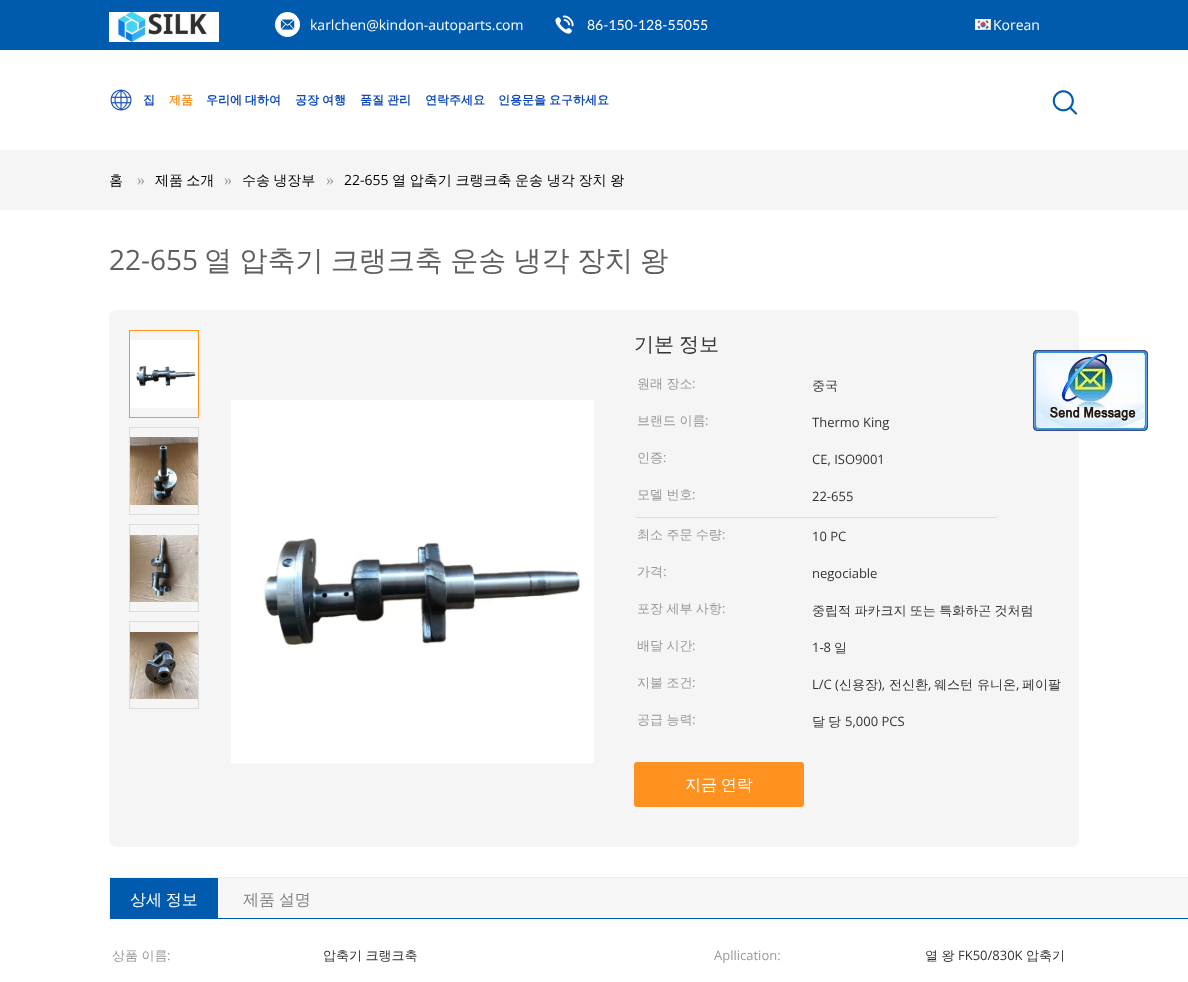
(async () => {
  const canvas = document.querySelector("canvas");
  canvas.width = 1188;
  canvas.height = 982;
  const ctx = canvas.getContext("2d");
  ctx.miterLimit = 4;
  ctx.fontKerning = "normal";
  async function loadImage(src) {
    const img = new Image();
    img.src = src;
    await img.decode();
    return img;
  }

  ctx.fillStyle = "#ffffff";
  ctx.fillRect(0, 0, 1188, 982);
  ctx.fillStyle = "#005aad";
  ctx.fillRect(0, 0, 1188, 50);
  ctx.drawImage(await loadImage("img/1.png"), 109, 12, 110, 30);
  ctx.fillStyle = "#ffffff";
  ctx.beginPath();
  ctx.arc(287.5, 24.5, 12.5, 0, Math.PI * 2);
  ctx.fill();
  ctx.drawImage(await loadImage("img/2.png"), 280, 19, 15, 11);
  ctx.drawImage(await loadImage("img/3.png"), 555, 15, 19, 19);
  ctx.drawImage(await loadImage("img/4.png"), 975, 19, 16, 11);
  ctx.drawImage(await loadImage("img/5.png"), 110, 89, 22, 22);
  ctx.drawImage(await loadImage("img/6.png"), 1052, 90, 26, 25);
  ctx.fillStyle = "#f5f5f5";
  ctx.fillRect(0, 150, 1188, 60);
  ctx.beginPath();
  ctx.roundRect(109, 310, 970, 537, 8);
  ctx.fill();
  ctx.strokeStyle = "#ff9121";
  ctx.strokeRect(129.5, 330.5, 69, 87);
  ctx.drawImage(await loadImage("img/7.png"), 130, 340, 68, 68);
  ctx.strokeStyle = "#dddddd";
  ctx.strokeRect(129.5, 427.5, 69, 87);
  ctx.drawImage(await loadImage("img/8.png"), 130, 437, 68, 68);
  ctx.strokeRect(129.5, 524.5, 69, 87);
  ctx.drawImage(await loadImage("img/9.png"), 130, 535, 68, 67);
  ctx.strokeRect(129.5, 621.5, 69, 87);
  ctx.drawImage(await loadImage("img/10.png"), 130, 632, 68, 67);
  ctx.drawImage(await loadImage("img/11.png"), 231, 400, 363, 363);
  ctx.fillStyle = "#dddddd";
  ctx.fillRect(636, 517, 361, 1);
  ctx.fillStyle = "#ff9121";
  ctx.beginPath();
  ctx.roundRect(634, 762, 170, 45, 3);
  ctx.fill();
  ctx.drawImage(await loadImage("img/12.png"), 1033, 350, 115, 81);
  for (const [x, y, w, h, color] of [
    [218, 878, 970, 40, "#f7f7f7"],
    [109, 877, 1079, 1, "#eeeeee"],
    [109, 918, 1079, 1, "#005aad"],
    [109, 877, 1, 42, "#eeeeee"],
    [110, 878, 108, 40, "#005aad"],
  ]) {
    ctx.fillStyle = color;
    ctx.fillRect(x, y, w, h);
  }
  ctx.font = "14px Open Sans";
  ctx.fillStyle = "#ffffff";
  ctx.fillText("karlchen@kindon-autoparts.com", 310, 30);
  ctx.font = "14px Lato";
  ctx.fillText("86-150-128-55055", 587, 30);
  ctx.font = "14px Open Sans";
  ctx.fillText("Korean", 993, 30);
  ctx.font = "bold 12px WenQuanYi Zen Hei";
  ctx.fillStyle = "#0e49bb";
  ctx.fillText("집", 143, 104);
  ctx.fillStyle = "#ff9121";
  ctx.fillText("제품", 169, 104);
  ctx.wordSpacing = "-0.5px";
  ctx.fillStyle = "#0e49bb";
  for (const [text, x, y] of [
    ["우리에 대하여", 206, 104],
    ["공장 여행", 295, 104],
    ["품질 관리", 360, 104],
  ]) {
    ctx.fillText(text, x, y);
  }
  ctx.wordSpacing = "0px";
  ctx.fillText("연락주세요", 425, 104);
  ctx.wordSpacing = "-0.5px";
  ctx.fillText("인용문을 요구하세요", 498, 104);
  ctx.wordSpacing = "0px";
  ctx.font = "500 14px WenQuanYi Zen Hei";
  ctx.fillStyle = "#000000";
  ctx.fillText("홈", 109, 185);
  ctx.font = "16px Liberation Serif";
  ctx.fillStyle = "#999999";
  ctx.fillText("»", 137, 185);
  ctx.wordSpacing = "-1px";
  ctx.font = "500 14px WenQuanYi Zen Hei";
  ctx.fillStyle = "#000000";
  ctx.fillText("제품 소개", 155, 185);
  ctx.wordSpacing = "0px";
  ctx.font = "16px Liberation Serif";
  ctx.fillStyle = "#999999";
  ctx.fillText("»", 224, 185);
  ctx.wordSpacing = "-1px";
  ctx.font = "500 14px WenQuanYi Zen Hei";
  ctx.fillStyle = "#000000";
  ctx.fillText("수송 냉장부", 242, 185);
  ctx.wordSpacing = "0px";
  ctx.font = "16px Liberation Serif";
  ctx.fillStyle = "#999999";
  ctx.fillText("»", 326, 185);
  ctx.font = "14px Open Sans";
  ctx.fillStyle = "#000000";
  ctx.fillText("22-655", 344, 185);
  ctx.wordSpacing = "-0.5px";
  ctx.font = "500 14px WenQuanYi Zen Hei";
  ctx.fillText("열 압축기 크랭크축 운송 냉각 장치 왕", 392, 185);
  ctx.wordSpacing = "0px";
  ctx.font = "28px Open Sans";
  ctx.fillStyle = "#5f5f5f";
  ctx.fillText("22-655", 109, 270);
  ctx.wordSpacing = "-1px";
  ctx.font = "500 28px WenQuanYi Zen Hei";
  ctx.fillText("열 압축기 크랭크축 운송 냉각 장치 왕", 204, 270);
  ctx.font = "500 20px WenQuanYi Zen Hei";
  ctx.fillStyle = "#333333";
  ctx.fillText("기본 정보", 634, 351);
  ctx.wordSpacing = "-0.5px";
  ctx.font = "500 13px WenQuanYi Zen Hei";
  ctx.fillStyle = "#999999";
  ctx.fillText("원래 장소", 637, 388);
  ctx.wordSpacing = "0px";
  ctx.font = "13px Open Sans";
  ctx.fillText(":", 692, 388);
  ctx.font = "500 13px WenQuanYi Zen Hei";
  ctx.fillStyle = "#333333";
  ctx.fillText("중국", 812, 390);
  ctx.wordSpacing = "-0.5px";
  ctx.fillStyle = "#999999";
  ctx.fillText("브랜드 이름", 637, 425);
  ctx.wordSpacing = "0px";
  ctx.font = "13px Open Sans";
  ctx.fillText(":", 705, 425);
  ctx.fillStyle = "#333333";
  ctx.fillText("Thermo King", 812, 427);
  ctx.font = "500 13px WenQuanYi Zen Hei";
  ctx.fillStyle = "#999999";
  ctx.fillText("인증", 637, 462);
  ctx.font = "13px Open Sans";
  ctx.fillText(":", 663, 462);
  ctx.fillStyle = "#333333";
  ctx.fillText("CE, ISO9001", 812, 464);
  ctx.wordSpacing = "-0.5px";
  ctx.font = "500 13px WenQuanYi Zen Hei";
  ctx.fillStyle = "#999999";
  ctx.fillText("모델 번호", 637, 499);
  ctx.wordSpacing = "0px";
  ctx.font = "13px Open Sans";
  ctx.fillText(":", 692, 499);
  ctx.fillStyle = "#333333";
  ctx.fillText("22-655", 812, 501);
  ctx.wordSpacing = "-0.5px";
  ctx.font = "500 13px WenQuanYi Zen Hei";
  ctx.fillStyle = "#999999";
  ctx.fillText("최소 주문 수량", 637, 539);
  ctx.wordSpacing = "0px";
  ctx.font = "13px Open Sans";
  ctx.fillText(":", 722, 539);
  ctx.fillStyle = "#333333";
  ctx.fillText("10 PC", 812, 541);
  ctx.font = "500 13px WenQuanYi Zen Hei";
  ctx.fillStyle = "#999999";
  ctx.fillText("가격", 637, 576);
  ctx.font = "13px Open Sans";
  ctx.fillText(":", 663, 576);
  ctx.fillStyle = "#333333";
  ctx.fillText("negociable", 812, 578);
  ctx.wordSpacing = "-0.5px";
  ctx.font = "500 13px WenQuanYi Zen Hei";
  ctx.fillStyle = "#999999";
  ctx.fillText("포장 세부 사항", 637, 613);
  ctx.wordSpacing = "0px";
  ctx.font = "13px Open Sans";
  ctx.fillText(":", 722, 613);
  ctx.wordSpacing = "-0.5px";
  ctx.font = "500 13px WenQuanYi Zen Hei";
  ctx.fillStyle = "#333333";
  ctx.fillText("중립적 파카크지 또는 특화하곤 것처럼", 812, 615);
  ctx.fillStyle = "#999999";
  ctx.fillText("배달 시간", 637, 650);
  ctx.wordSpacing = "0px";
  ctx.font = "13px Open Sans";
  ctx.fillText(":", 692, 650);
  ctx.fillStyle = "#333333";
  ctx.fillText("1-8", 812, 652);
  ctx.font = "500 13px WenQuanYi Zen Hei";
  ctx.fillText("일", 834, 652);
  ctx.wordSpacing = "-0.5px";
  ctx.fillStyle = "#999999";
  ctx.fillText("지불 조건", 637, 687);
  ctx.wordSpacing = "0px";
  ctx.font = "13px Open Sans";
  ctx.fillText(":", 692, 687);
  ctx.fillStyle = "#333333";
  ctx.fillText("L/C (", 812, 689);
  ctx.font = "500 13px WenQuanYi Zen Hei";
  ctx.fillText("신용장", 839, 689);
  ctx.font = "13px Open Sans";
  ctx.fillText("),", 878, 689);
  ctx.font = "500 13px WenQuanYi Zen Hei";
  ctx.fillText("전신환", 889, 689);
  ctx.font = "13px Open Sans";
  ctx.fillText(",", 928, 689);
  ctx.font = "500 13px WenQuanYi Zen Hei";
  ctx.fillText("웨스턴", 934, 689);
  ctx.fillText("유니온", 977, 689);
  ctx.font = "13px Open Sans";
  ctx.fillText(",", 1016, 689);
  ctx.font = "500 13px WenQuanYi Zen Hei";
  ctx.fillText("페이팔", 1022, 689);
  ctx.wordSpacing = "-0.5px";
  ctx.fillStyle = "#999999";
  ctx.fillText("공급 능력", 637, 724);
  ctx.wordSpacing = "0px";
  ctx.font = "13px Open Sans";
  ctx.fillText(":", 692, 724);
  ctx.font = "500 13px WenQuanYi Zen Hei";
  ctx.fillStyle = "#333333";
  ctx.fillText("달", 812, 726);
  ctx.fillText("당", 828, 726);
  ctx.font = "13px Open Sans";
  ctx.fillText("5,000 PCS", 845, 726);
  ctx.wordSpacing = "-1px";
  ctx.font = "500 16px WenQuanYi Zen Hei";
  ctx.fillStyle = "#ffffff";
  ctx.fillText("지금 연락", 685, 790);
  ctx.fillText("상세 정보", 130, 905);
  ctx.fillStyle = "#848484";
  ctx.fillText("제품 설명", 243, 905);
  ctx.wordSpacing = "-0.5px";
  ctx.font = "500 13px WenQuanYi Zen Hei";
  ctx.fillStyle = "#999999";
  ctx.fillText("상품 이름", 112, 960);
  ctx.wordSpacing = "0px";
  ctx.font = "13px Open Sans";
  ctx.fillText(":", 167, 960);
  ctx.wordSpacing = "-0.5px";
  ctx.font = "500 13px WenQuanYi Zen Hei";
  ctx.fillStyle = "#333333";
  ctx.fillText("압축기 크랭크축", 323, 960);
  ctx.wordSpacing = "0px";
  ctx.font = "13px Open Sans";
  ctx.fillStyle = "#999999";
  ctx.fillText("Apllication:", 714, 960);
  ctx.wordSpacing = "-0.5px";
  ctx.font = "500 13px WenQuanYi Zen Hei";
  ctx.fillStyle = "#333333";
  ctx.fillText("열 왕", 925, 960);
  ctx.wordSpacing = "0px";
  ctx.font = "13px Open Sans";
  ctx.fillText("FK50/830K", 958, 960);
  ctx.font = "500 13px WenQuanYi Zen Hei";
  ctx.fillText("압축기", 1026, 960);
})();
